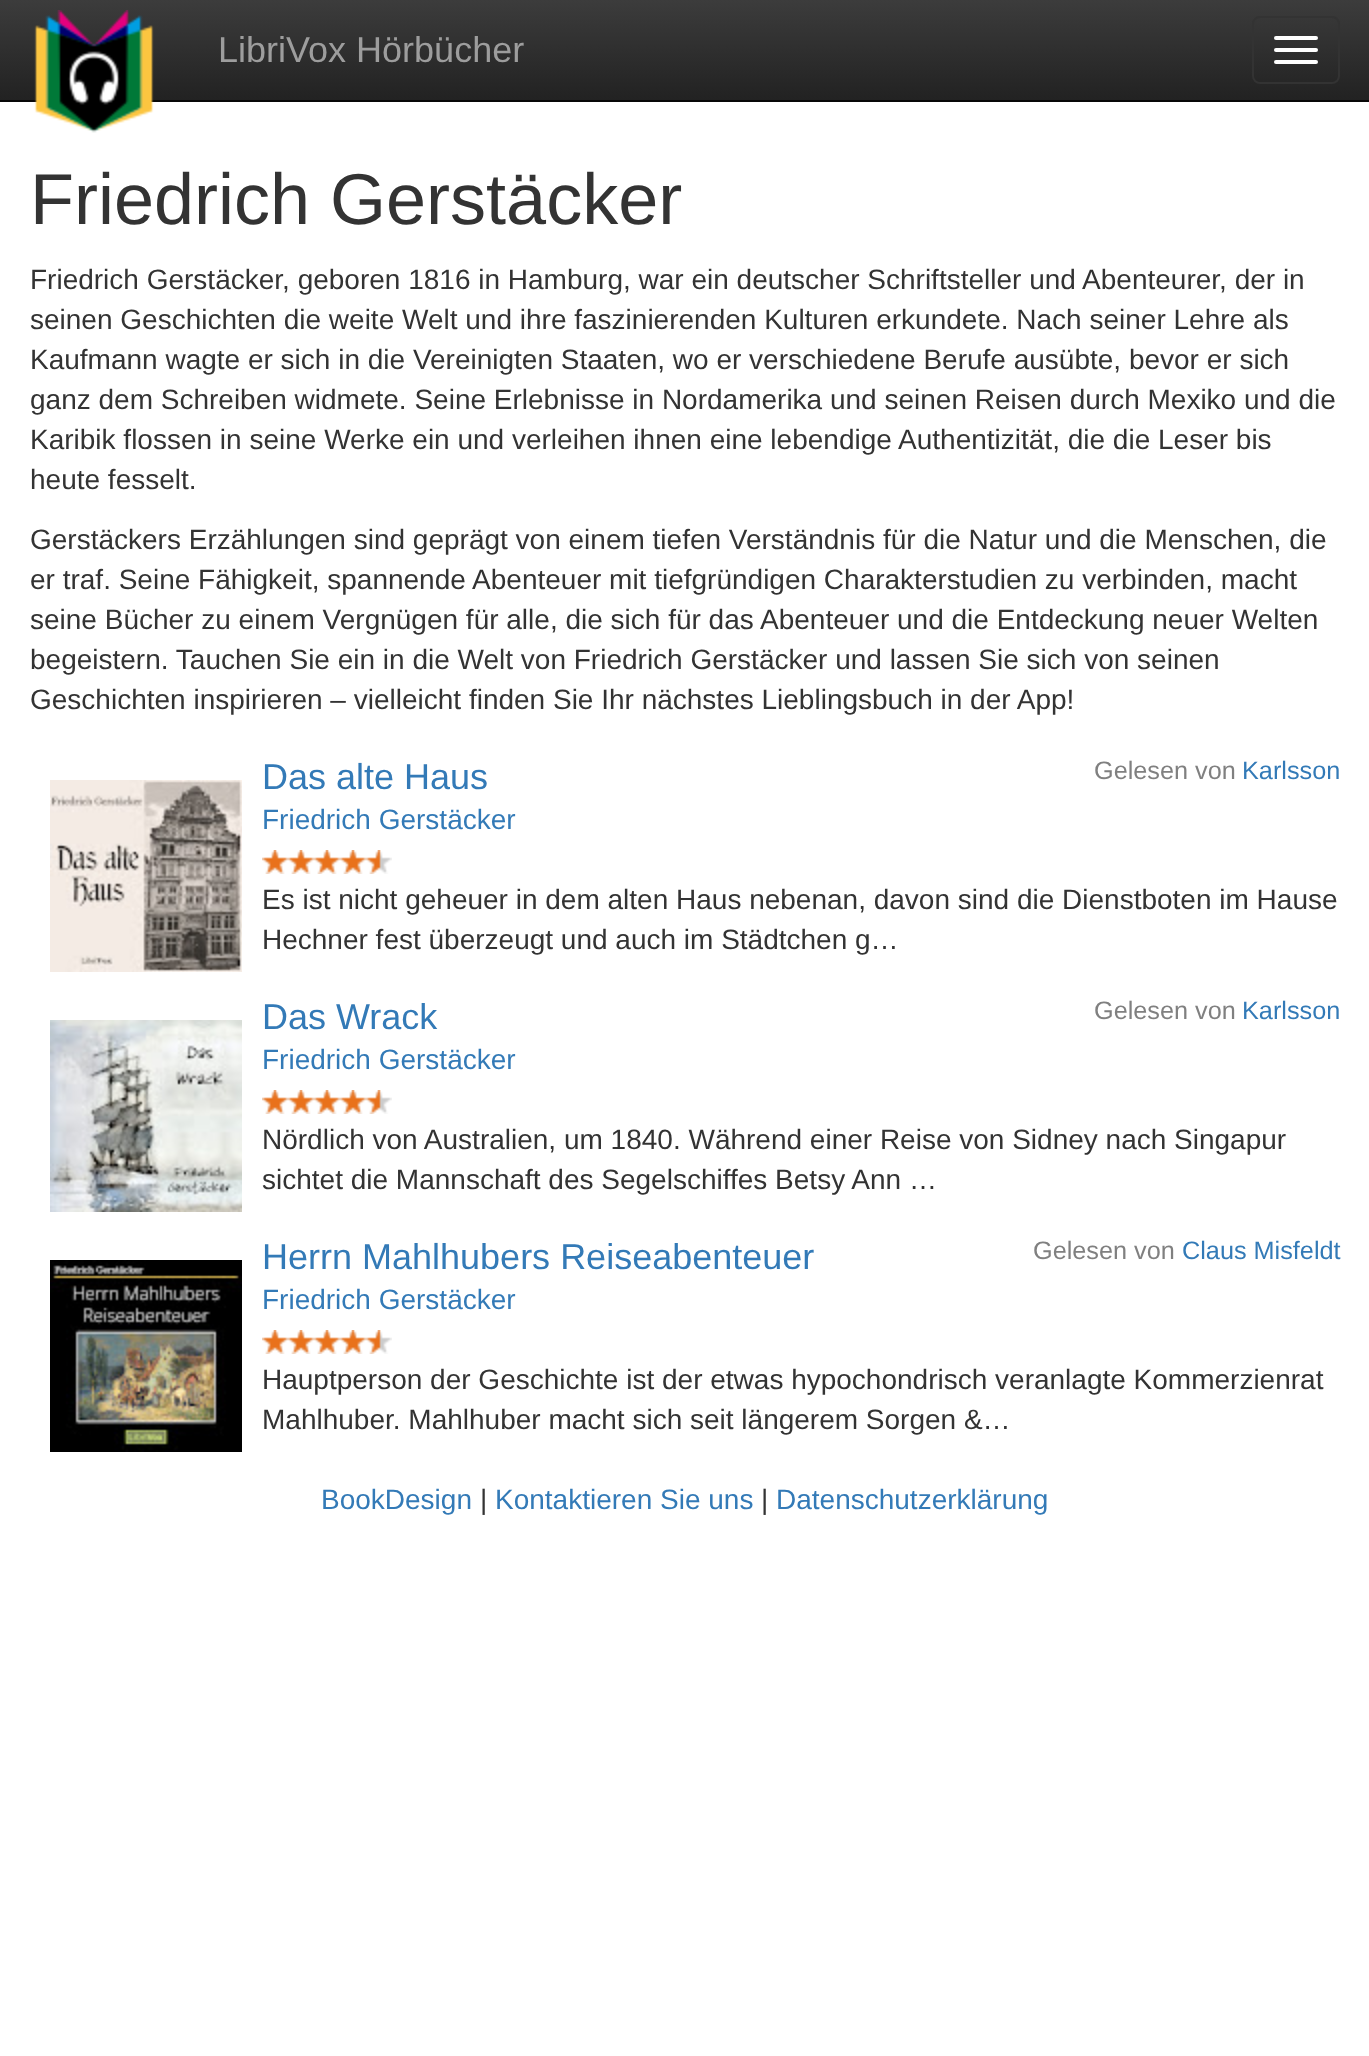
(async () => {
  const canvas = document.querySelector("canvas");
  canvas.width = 1369;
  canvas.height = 2056;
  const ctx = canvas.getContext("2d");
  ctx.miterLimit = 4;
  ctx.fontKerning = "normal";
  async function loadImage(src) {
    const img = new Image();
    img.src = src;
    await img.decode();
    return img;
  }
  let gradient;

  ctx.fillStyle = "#ffffff";
  ctx.fillRect(0, 0, 1369, 2056);
  gradient = ctx.createLinearGradient(685, 0, 685, 100);
  gradient.addColorStop(0, "#3c3c3c");
  gradient.addColorStop(1, "#222222");
  ctx.fillStyle = gradient;
  ctx.fillRect(0, 0, 1369, 100);
  ctx.fillStyle = "#080808";
  ctx.fillRect(0, 100, 1369, 2);
  ctx.drawImage(await loadImage("img/1.png"), 34, 10, 120, 123);
  ctx.beginPath();
  ctx.roundRect(1253, 17, 86, 66, 7);
  ctx.strokeStyle = "#333333";
  ctx.lineWidth = 2;
  ctx.stroke();
  ctx.fillStyle = "#ffffff";
  ctx.beginPath();
  ctx.roundRect(1274, 36, 44, 4, 2);
  ctx.fill();
  ctx.beginPath();
  ctx.roundRect(1274, 48, 44, 4, 2);
  ctx.fill();
  ctx.beginPath();
  ctx.roundRect(1274, 60, 44, 4, 2);
  ctx.fill();
  ctx.drawImage(await loadImage("img/2.png"), 50, 780, 192, 192);
  ctx.drawImage(await loadImage("img/3.png"), 262, 850, 26, 24);
  ctx.drawImage(await loadImage("img/3.png"), 288, 850, 26, 24);
  ctx.drawImage(await loadImage("img/3.png"), 314, 850, 26, 24);
  ctx.drawImage(await loadImage("img/3.png"), 340, 850, 26, 24);
  ctx.drawImage(await loadImage("img/4.png"), 366, 850, 26, 24);
  ctx.drawImage(await loadImage("img/5.png"), 50, 1020, 192, 192);
  ctx.drawImage(await loadImage("img/3.png"), 262, 1090, 26, 24);
  ctx.drawImage(await loadImage("img/3.png"), 288, 1090, 26, 24);
  ctx.drawImage(await loadImage("img/3.png"), 314, 1090, 26, 24);
  ctx.drawImage(await loadImage("img/3.png"), 340, 1090, 26, 24);
  ctx.drawImage(await loadImage("img/4.png"), 366, 1090, 26, 24);
  ctx.drawImage(await loadImage("img/6.png"), 50, 1260, 192, 192);
  ctx.drawImage(await loadImage("img/3.png"), 262, 1330, 26, 24);
  ctx.drawImage(await loadImage("img/3.png"), 288, 1330, 26, 24);
  ctx.drawImage(await loadImage("img/3.png"), 314, 1330, 26, 24);
  ctx.drawImage(await loadImage("img/3.png"), 340, 1330, 26, 24);
  ctx.drawImage(await loadImage("img/4.png"), 366, 1330, 26, 24);
  ctx.font = "36px Liberation Sans";
  ctx.fillStyle = "#9d9d9d";
  ctx.fillText("LibriVox Hörbücher", 218, 62);
  ctx.font = "72px Liberation Sans";
  ctx.fillStyle = "#333333";
  ctx.fillText("Friedrich Gerstäcker", 30, 224);
  ctx.font = "28px Liberation Sans";
  for (const [text, x, y] of [
    ["Friedrich Gerstäcker, geboren 1816 in Hamburg, war ein deutscher Schriftsteller und Abenteurer, der in", 30, 289],
    ["seinen Geschichten die weite Welt und ihre faszinierenden Kulturen erkundete. Nach seiner Lehre als", 30, 329],
    ["Kaufmann wagte er sich in die Vereinigten Staaten, wo er verschiedene Berufe ausübte, bevor er sich", 30, 369],
    ["ganz dem Schreiben widmete. Seine Erlebnisse in Nordamerika und seinen Reisen durch Mexiko und die", 30, 409],
    ["Karibik flossen in seine Werke ein und verleihen ihnen eine lebendige Authentizität, die die Leser bis", 30, 449],
    ["heute fesselt.", 30, 489],
    ["Gerstäckers Erzählungen sind geprägt von einem tiefen Verständnis für die Natur und die Menschen, die", 30, 549],
    ["er traf. Seine Fähigkeit, spannende Abenteuer mit tiefgründigen Charakterstudien zu verbinden, macht", 30, 589],
    ["seine Bücher zu einem Vergnügen für alle, die sich für das Abenteuer und die Entdeckung neuer Welten", 30, 629],
    ["begeistern. Tauchen Sie ein in die Welt von Friedrich Gerstäcker und lassen Sie sich von seinen", 30, 669],
    ["Geschichten inspirieren – vielleicht finden Sie Ihr nächstes Lieblingsbuch in der App!", 30, 709],
  ]) {
    ctx.fillText(text, x, y);
  }
  ctx.font = "36px Liberation Sans";
  ctx.fillStyle = "#337ab7";
  ctx.fillText("Das alte Haus", 262, 789);
  ctx.font = "25.25px Liberation Sans";
  ctx.fillStyle = "#808080";
  ctx.fillText("Gelesen von", 1094, 779);
  ctx.fillStyle = "#337ab7";
  ctx.fillText("Karlsson", 1242, 779);
  ctx.font = "28px Liberation Sans";
  ctx.fillText("Friedrich Gerstäcker", 262, 829);
  ctx.fillStyle = "#333333";
  ctx.fillText("Es ist nicht geheuer in dem alten Haus nebenan, davon sind die Dienstboten im Hause", 262, 909);
  ctx.fillText("Hechner fest überzeugt und auch im Städtchen g…", 262, 949);
  ctx.font = "36px Liberation Sans";
  ctx.fillStyle = "#337ab7";
  ctx.fillText("Das Wrack", 262, 1029);
  ctx.font = "25.25px Liberation Sans";
  ctx.fillStyle = "#808080";
  ctx.fillText("Gelesen von", 1094, 1019);
  ctx.fillStyle = "#337ab7";
  ctx.fillText("Karlsson", 1242, 1019);
  ctx.font = "28px Liberation Sans";
  ctx.fillText("Friedrich Gerstäcker", 262, 1069);
  ctx.fillStyle = "#333333";
  ctx.fillText("Nördlich von Australien, um 1840. Während einer Reise von Sidney nach Singapur", 262, 1149);
  ctx.fillText("sichtet die Mannschaft des Segelschiffes Betsy Ann …", 262, 1189);
  ctx.font = "36px Liberation Sans";
  ctx.fillStyle = "#337ab7";
  ctx.fillText("Herrn Mahlhubers Reiseabenteuer", 262, 1269);
  ctx.font = "25.25px Liberation Sans";
  ctx.fillStyle = "#808080";
  ctx.fillText("Gelesen von", 1033, 1259);
  ctx.fillStyle = "#337ab7";
  ctx.fillText("Claus Misfeldt", 1182, 1259);
  ctx.font = "28px Liberation Sans";
  ctx.fillText("Friedrich Gerstäcker", 262, 1309);
  ctx.fillStyle = "#333333";
  ctx.fillText("Hauptperson der Geschichte ist der etwas hypochondrisch veranlagte Kommerzienrat", 262, 1389);
  ctx.fillText("Mahlhuber. Mahlhuber macht sich seit längerem Sorgen &…", 262, 1429);
  ctx.fillStyle = "#337ab7";
  ctx.fillText("BookDesign", 321, 1509);
  ctx.fillStyle = "#333333";
  ctx.fillText("|", 480, 1509);
  ctx.fillStyle = "#337ab7";
  ctx.fillText("Kontaktieren Sie uns", 495, 1509);
  ctx.fillStyle = "#333333";
  ctx.fillText("|", 761, 1509);
  ctx.fillStyle = "#337ab7";
  ctx.fillText("Datenschutzerklärung", 776, 1509);
})();
